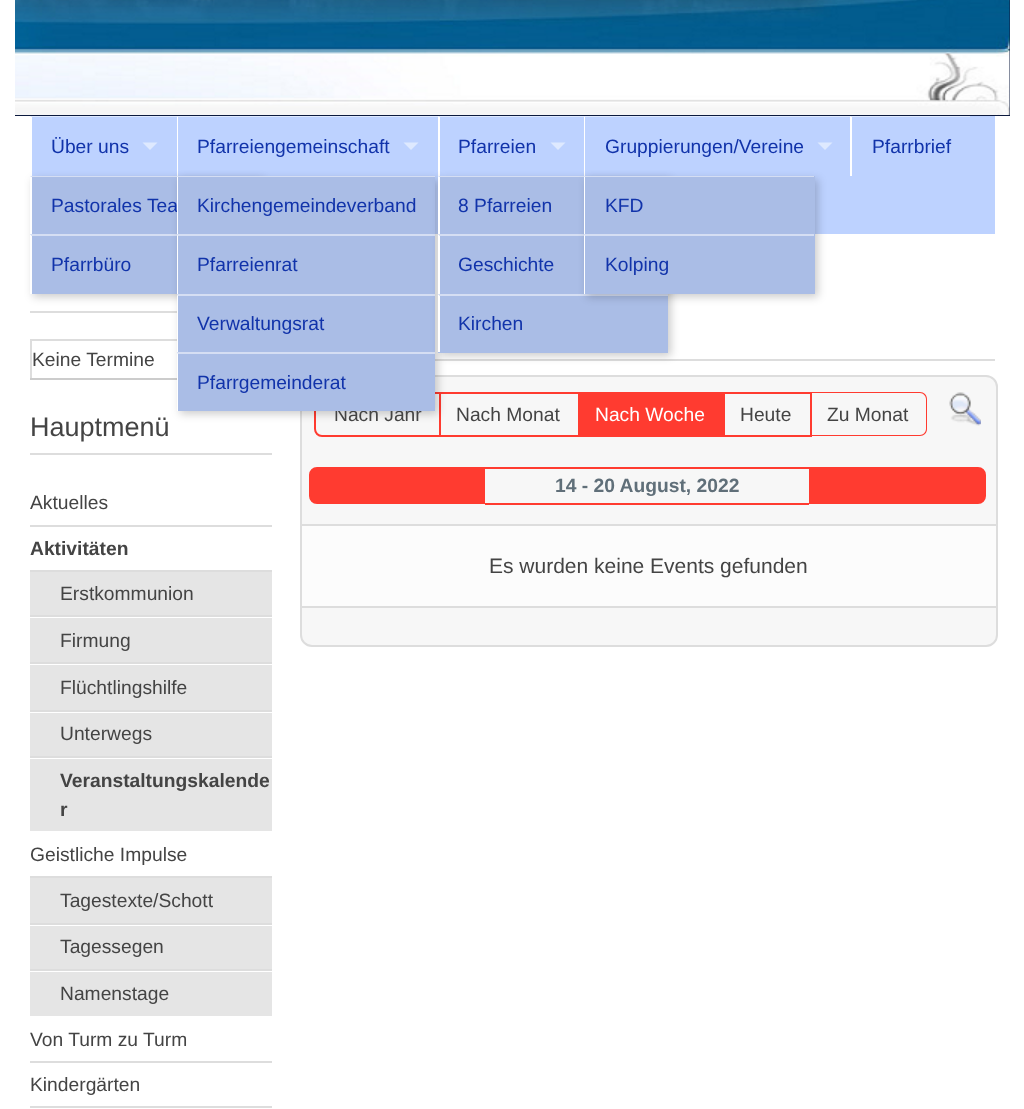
(async () => {
  const canvas = document.querySelector("canvas");
  canvas.width = 1024;
  canvas.height = 1109;
  const ctx = canvas.getContext("2d");
  ctx.miterLimit = 4;
  ctx.fontKerning = "normal";
  async function loadImage(src) {
    const img = new Image();
    img.src = src;
    await img.decode();
    return img;
  }
  let path;

  ctx.fillStyle = "#ffffff";
  ctx.fillRect(0, 0, 1024, 1109);
  ctx.fillStyle = "#0c1a3e";
  ctx.fillRect(15, 0, 995, 116);
  ctx.drawImage(await loadImage("img/1.png"), 15, 0, 995, 115);
  ctx.fillStyle = "#bdd2ff";
  ctx.fillRect(30, 116, 965, 118);
  ctx.fillStyle = "#dee9ff";
  path = new Path2D("M30 116H177V117H32Z");
  ctx.fill(path);
  ctx.fillStyle = "#ffffff";
  path = new Path2D("M30 176V116L32 117V176Z");
  ctx.fill(path);
  ctx.fillStyle = "#dee9ff";
  path = new Path2D("M142.5 142.5H157.5L150 150Z");
  ctx.fill(path);
  path = new Path2D("M177 116H438V117H178Z");
  ctx.fill(path);
  ctx.fillStyle = "#ffffff";
  path = new Path2D("M177 176V116L178 117V176Z");
  ctx.fill(path);
  ctx.fillStyle = "#dddddd";
  ctx.fillRect(30, 311, 147, 2);
  ctx.fillStyle = "rgba(0, 0, 0, 0.2)";
  ctx.filter = "blur(4.5px)";
  ctx.beginPath();
  ctx.rect(33, 179, 231, 118);
  ctx.fill();
  ctx.filter = "none";
  ctx.fillStyle = "#aabde6";
  ctx.fillRect(30, 176, 147, 118);
  ctx.fillStyle = "#d5def3";
  path = new Path2D("M30 176H261V177H32Z");
  ctx.fill(path);
  ctx.fillStyle = "#ffffff";
  path = new Path2D("M30 234V176L32 177V234Z");
  ctx.fill(path);
  ctx.fillStyle = "#d5def3";
  path = new Path2D("M30 234H261V236H32Z");
  ctx.fill(path);
  ctx.fillStyle = "#ffffff";
  path = new Path2D("M30 294V234L32 236V294Z");
  ctx.fill(path);
  ctx.fillStyle = "#dee9ff";
  path = new Path2D("M403.5 142.5H418.5L411 150Z");
  ctx.fill(path);
  path = new Path2D("M438 116H584V117H440Z");
  ctx.fill(path);
  ctx.fillStyle = "#ffffff";
  path = new Path2D("M438 176V116L440 117V176Z");
  ctx.fill(path);
  for (const [x, y, w, h, color] of [
    [30, 339, 147, 2, "#dddddd"],
    [30, 339, 2, 41, "#dddddd"],
    [30, 378, 147, 2, "#cccccc"],
    [435, 359, 560, 2, "#dddddd"],
  ]) {
    ctx.fillStyle = color;
    ctx.fillRect(x, y, w, h);
  }
  ctx.fillStyle = "#f7f7f7";
  ctx.beginPath();
  ctx.roundRect(301, 376, 696, 270, 11);
  ctx.fill();
  ctx.strokeStyle = "#dddddd";
  ctx.lineWidth = 2;
  ctx.stroke();
  ctx.beginPath();
  ctx.roundRect(315, 393, 125, 43, [7, 0, 0, 7]);
  ctx.strokeStyle = "#ff3b30";
  ctx.stroke();
  ctx.fillStyle = "#ff3b30";
  ctx.fillRect(438, 392, 141, 2);
  ctx.fillStyle = "rgba(0, 0, 0, 0.2)";
  ctx.filter = "blur(4.5px)";
  ctx.beginPath();
  ctx.rect(180, 179, 258, 235);
  ctx.fill();
  ctx.filter = "none";
  ctx.fillStyle = "#dee9ff";
  path = new Path2D("M550.5 142.5H565.5L558 150Z");
  ctx.fill(path);
  path = new Path2D("M584 116H850V117H585Z");
  ctx.fill(path);
  ctx.fillStyle = "#ffffff";
  path = new Path2D("M584 176V116L585 117V176Z");
  ctx.fill(path);
  ctx.fillStyle = "#dee9ff";
  path = new Path2D("M817.5 142.5H832.5L825 150Z");
  ctx.fill(path);
  path = new Path2D("M850 116H970V117H852Z");
  ctx.fill(path);
  ctx.fillStyle = "#ffffff";
  path = new Path2D("M850 176V116L852 117V176Z");
  ctx.fill(path);
  for (const [x, y, w, h, color] of [
    [30, 453, 242, 2, "#dddddd"],
    [30, 525, 242, 2, "#dddddd"],
    [30, 570, 242, 2, "#dddddd"],
    [30, 572, 242, 43, "#e5e5e5"],
    [30, 615, 242, 2, "#dddddd"],
    [30, 618, 242, 44, "#e5e5e5"],
    [30, 662, 242, 2, "#dddddd"],
    [30, 665, 242, 45, "#e5e5e5"],
    [30, 710, 242, 2, "#dddddd"],
    [30, 713, 242, 43, "#e5e5e5"],
    [30, 756, 242, 2, "#dddddd"],
    [30, 759, 242, 72, "#e5e5e5"],
    [30, 876, 242, 2, "#dddddd"],
    [30, 878, 242, 45, "#e5e5e5"],
    [30, 923, 242, 2, "#dddddd"],
    [30, 926, 242, 43, "#e5e5e5"],
    [30, 969, 242, 2, "#dddddd"],
    [30, 972, 242, 44, "#e5e5e5"],
    [30, 1061, 242, 2, "#dddddd"],
    [30, 1106, 242, 2, "#dddddd"],
    [438, 435, 141, 2, "#ff3b30"],
    [578, 392, 147, 45, "#ff3b30"],
    [722, 392, 90, 2, "#ff3b30"],
    [810, 392, 2, 45, "#ff3b30"],
    [722, 435, 90, 2, "#ff3b30"],
  ]) {
    ctx.fillStyle = color;
    ctx.fillRect(x, y, w, h);
  }
  path = new Path2D("M808 392H920C924 392 927 395 927 399V429C927 433 924 436 920 436H808ZM808 393H920C923 393 926 396 926 399V429C926 432 923 435 920 435H808Z");
  ctx.fill(path, "evenodd");
  ctx.drawImage(await loadImage("img/2.png"), 949, 392, 32, 34);
  ctx.beginPath();
  ctx.roundRect(310, 468, 174, 35, [7, 0, 0, 7]);
  ctx.fill();
  ctx.stroke();
  ctx.fillRect(485, 467, 324, 2);
  ctx.fillRect(485, 503, 324, 2);
  ctx.beginPath();
  ctx.roundRect(810, 468, 175, 35, [0, 7, 7, 0]);
  ctx.fill();
  ctx.stroke();
  ctx.fillStyle = "#fcfcfc";
  ctx.beginPath();
  ctx.rect(301, 525, 696, 82);
  ctx.fill();
  ctx.strokeStyle = "#dddddd";
  ctx.stroke();
  ctx.font = "19.25px Liberation Sans";
  ctx.fillStyle = "#1133aa";
  for (const [text, x, y] of [
    ["Über uns", 51, 153],
    ["Pastorales Tea", 51, 212],
    ["Pfarrbüro", 51, 271],
    ["Pfarreiengemeinschaft", 197, 153],
    ["Pfarreien", 458, 153],
    ["Gruppierungen/Vereine", 605, 153],
    ["Pfarrbrief", 872, 153],
  ]) {
    ctx.fillText(text, x, y);
  }
  ctx.fillStyle = "#444444";
  ctx.fillText("Keine Termine", 32, 366);
  ctx.font = "27px Liberation Sans";
  ctx.fillText("Hauptmenü", 30, 436);
  ctx.font = "19.25px Liberation Sans";
  ctx.fillText("Aktuelles", 30, 509);
  ctx.font = "bold 19.25px Liberation Sans";
  ctx.fillText("Aktivitäten", 30, 555);
  ctx.font = "19.25px Liberation Sans";
  for (const [text, x, y] of [
    ["Erstkommunion", 60, 600],
    ["Firmung", 60, 647],
    ["Flüchtlingshilfe", 60, 694],
    ["Unterwegs", 60, 740],
  ]) {
    ctx.fillText(text, x, y);
  }
  ctx.font = "bold 19.25px Liberation Sans";
  ctx.fillText("Veranstaltungskalende", 60, 787);
  ctx.fillText("r", 60, 816);
  ctx.font = "19.25px Liberation Sans";
  for (const [text, x, y] of [
    ["Geistliche Impulse", 30, 861],
    ["Tagestexte/Schott", 60, 907],
    ["Tagessegen", 60, 953],
    ["Namenstage", 60, 1000],
    ["Von Turm zu Turm", 30, 1046],
    ["Kindergärten", 30, 1091],
    ["Nach Jahr", 334, 421],
  ]) {
    ctx.fillText(text, x, y);
  }
  ctx.fillStyle = "#aabde6";
  ctx.fillRect(177, 176, 258, 235);
  ctx.fillStyle = "#d5def3";
  path = new Path2D("M177 352H435V354H178Z");
  ctx.fill(path);
  path = new Path2D("M177 294H435V296H178Z");
  ctx.fill(path);
  path = new Path2D("M177 234H435V236H178Z");
  ctx.fill(path);
  path = new Path2D("M177 176H435V177H178Z");
  ctx.fill(path);
  ctx.fillStyle = "rgba(0, 0, 0, 0.2)";
  ctx.filter = "blur(4.5px)";
  ctx.beginPath();
  ctx.rect(441, 179, 230, 177);
  ctx.fill();
  ctx.filter = "none";
  ctx.fillStyle = "#aabde6";
  ctx.fillRect(438, 294, 230, 59);
  ctx.fillStyle = "#d5def3";
  path = new Path2D("M438 294H668V296H440Z");
  ctx.fill(path);
  ctx.fillStyle = "#aabde6";
  ctx.fillRect(438, 176, 146, 118);
  ctx.fillStyle = "#d5def3";
  path = new Path2D("M438 234H668V236H440Z");
  ctx.fill(path);
  path = new Path2D("M438 176H668V177H440Z");
  ctx.fill(path);
  ctx.fillStyle = "rgba(0, 0, 0, 0.2)";
  ctx.filter = "blur(4.5px)";
  ctx.beginPath();
  ctx.rect(587, 179, 231, 118);
  ctx.fill();
  ctx.filter = "none";
  ctx.fillStyle = "#aabde6";
  ctx.fillRect(584, 176, 231, 118);
  ctx.fillStyle = "#1133aa";
  ctx.fillText("Kolping", 605, 271);
  ctx.fillStyle = "#d5def3";
  path = new Path2D("M584 234H814V236H585Z");
  ctx.fill(path);
  ctx.fillStyle = "#ffffff";
  path = new Path2D("M584 294V234L585 236V294Z");
  ctx.fill(path);
  ctx.fillStyle = "#1133aa";
  ctx.fillText("KFD", 605, 212);
  ctx.fillStyle = "#d5def3";
  path = new Path2D("M584 176H814V177H585Z");
  ctx.fill(path);
  ctx.fillStyle = "#ffffff";
  path = new Path2D("M584 234V176L585 177V234Z");
  ctx.fill(path);
  ctx.fillStyle = "#1133aa";
  ctx.fillText("Kirchen", 458, 330);
  ctx.fillStyle = "#ffffff";
  path = new Path2D("M438 352V294L440 296V352Z");
  ctx.fill(path);
  ctx.fillStyle = "#1133aa";
  ctx.fillText("Geschichte", 458, 271);
  ctx.fillStyle = "#ffffff";
  path = new Path2D("M438 294V234L440 236V294Z");
  ctx.fill(path);
  ctx.fillStyle = "#1133aa";
  ctx.fillText("8 Pfarreien", 458, 212);
  ctx.fillStyle = "#ffffff";
  path = new Path2D("M438 234V176L440 177V234Z");
  ctx.fill(path);
  ctx.fillStyle = "#1133aa";
  ctx.fillText("Pfarrgemeinderat", 197, 389);
  ctx.fillStyle = "#ffffff";
  path = new Path2D("M177 411V352L178 354V411Z");
  ctx.fill(path);
  ctx.fillStyle = "#1133aa";
  ctx.fillText("Verwaltungsrat", 197, 330);
  ctx.fillStyle = "#ffffff";
  path = new Path2D("M177 352V294L178 296V352Z");
  ctx.fill(path);
  ctx.fillStyle = "#1133aa";
  ctx.fillText("Pfarreienrat", 197, 271);
  ctx.fillStyle = "#ffffff";
  path = new Path2D("M177 294V234L178 236V294Z");
  ctx.fill(path);
  ctx.fillStyle = "#1133aa";
  ctx.fillText("Kirchengemeindeverband", 197, 212);
  ctx.fillStyle = "#ffffff";
  path = new Path2D("M177 234V176L178 177V234Z");
  ctx.fill(path);
  ctx.fillStyle = "#444444";
  ctx.fillText("Nach Monat", 456, 421);
  ctx.fillStyle = "#ffffff";
  ctx.fillText("Nach Woche", 595, 421);
  ctx.fillStyle = "#444444";
  ctx.fillText("Heute", 740, 421);
  ctx.fillText("Zu Monat", 827, 421);
  ctx.font = "bold 19.25px Liberation Sans";
  ctx.fillStyle = "#606f79";
  ctx.fillText("14 - 20 August, 2022", 555, 492);
  ctx.font = "21px Liberation Sans";
  ctx.fillStyle = "#444444";
  ctx.fillText("Es wurden keine Events gefunden", 489, 573);
})();
